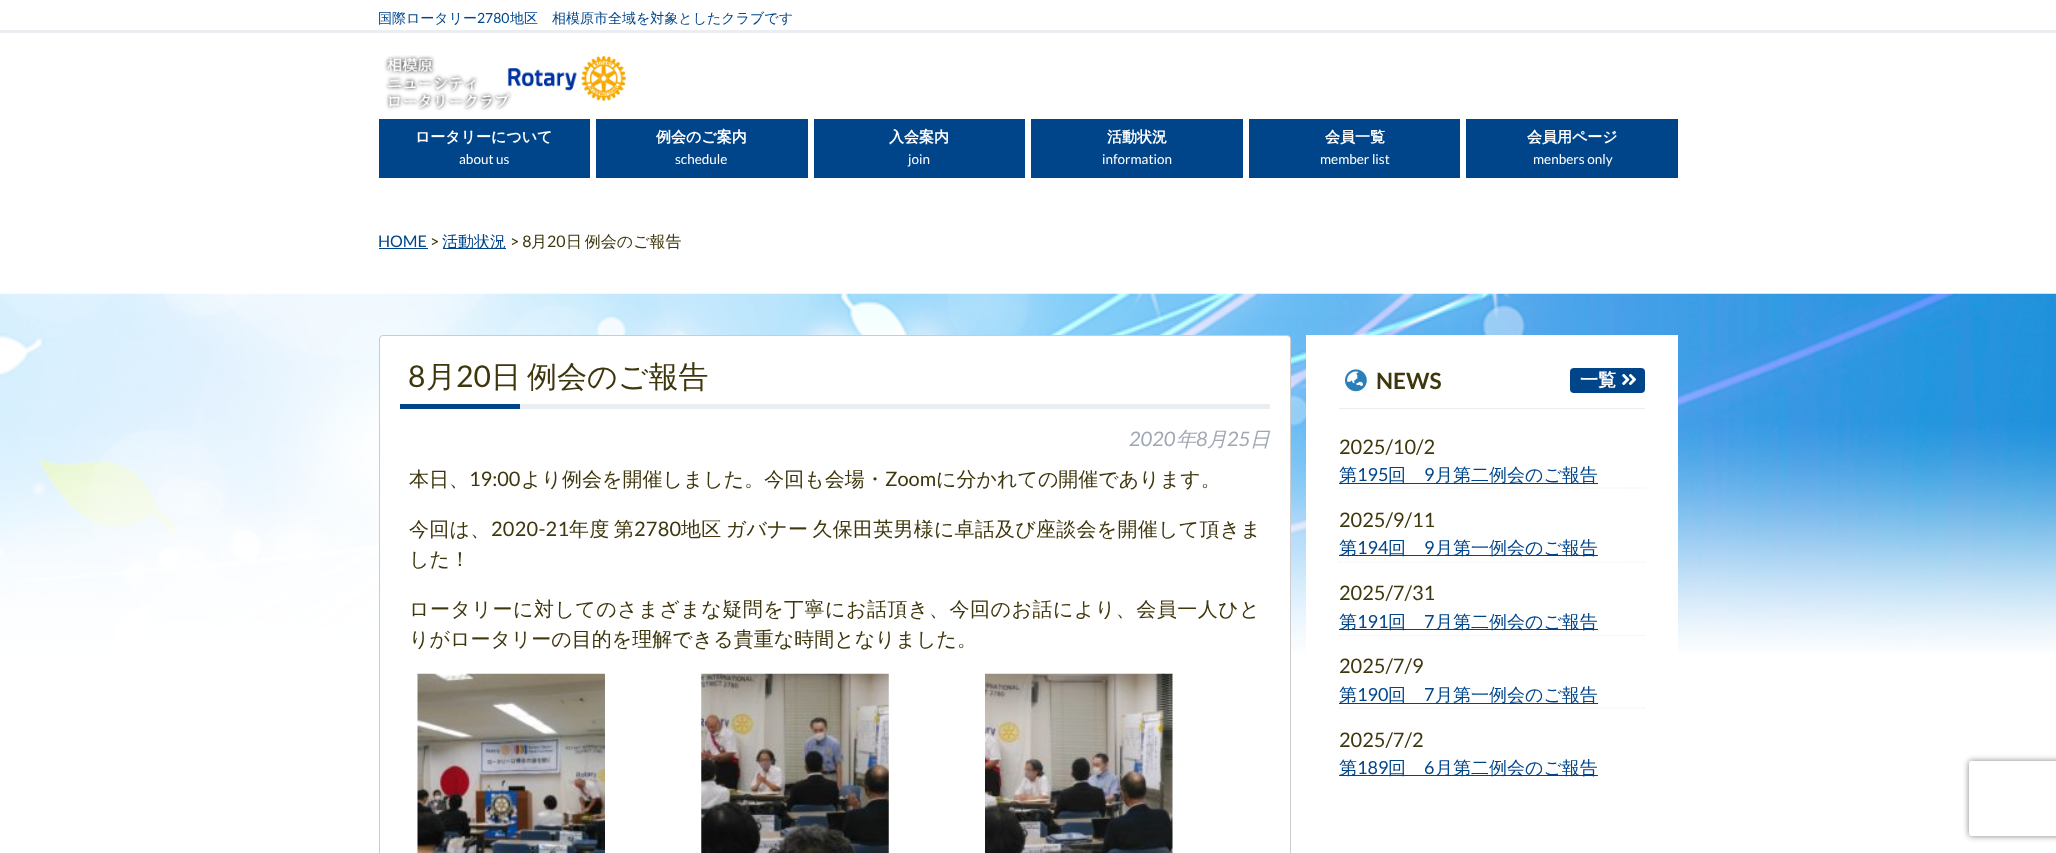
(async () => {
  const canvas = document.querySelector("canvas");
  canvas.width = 2056;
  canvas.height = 853;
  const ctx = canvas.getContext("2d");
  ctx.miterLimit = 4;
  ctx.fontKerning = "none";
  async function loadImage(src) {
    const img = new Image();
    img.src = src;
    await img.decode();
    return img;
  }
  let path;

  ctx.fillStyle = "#ffffff";
  ctx.fillRect(0, 0, 2056, 853);
  ctx.fillStyle = "#eaedf2";
  ctx.fillRect(0, 30, 2056, 3);
  ctx.drawImage(await loadImage("img/1.png"), 384, 55, 242, 56);
  for (const [x, y, w, h, color] of [
    [379, 119, 211, 59, "#00458a"],
    [596, 119, 212, 59, "#00458a"],
    [814, 119, 211, 59, "#00458a"],
    [1031, 119, 212, 59, "#00458a"],
    [1249, 119, 211, 59, "#00458a"],
    [1466, 119, 212, 59, "#00458a"],
    [379, 248, 49, 1, "#00458a"],
    [443, 248, 63, 1, "#00458a"],
  ]) {
    ctx.fillStyle = color;
    ctx.fillRect(x, y, w, h);
  }
  ctx.drawImage(await loadImage("img/2.png"), 0, 293, 2056, 360);
  ctx.fillStyle = "#ffffff";
  ctx.beginPath();
  ctx.roundRect(379.5, 335.5, 911, 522, 3.5);
  ctx.fill();
  ctx.strokeStyle = "#cccccc";
  ctx.stroke();
  ctx.fillStyle = "#eaedf2";
  ctx.fillRect(520, 404, 750, 5);
  ctx.fillStyle = "#00458a";
  ctx.fillRect(400, 404, 120, 5);
  ctx.drawImage(await loadImage("img/3.png"), 417, 673, 188, 180);
  ctx.drawImage(await loadImage("img/4.png"), 701, 673, 188, 180);
  ctx.drawImage(await loadImage("img/5.png"), 985, 673, 188, 180);
  ctx.fillStyle = "#ffffff";
  ctx.fillRect(1306, 335, 372, 318);
  ctx.drawImage(await loadImage("img/6.png"), 1345, 369, 22, 23);
  ctx.fillStyle = "#00458a";
  ctx.beginPath();
  ctx.roundRect(1570, 368, 75, 25, 4);
  ctx.fill();
  ctx.drawImage(await loadImage("img/7.png"), 1622, 373, 15, 13);
  ctx.fillStyle = "#eaedf2";
  ctx.fillRect(1339, 408, 306, 1);
  path = new Path2D("M1339 488H1645");
  ctx.strokeStyle = "#eaedf2";
  ctx.lineWidth = 1.2;
  ctx.setLineDash([1.25, 1.25]);
  ctx.stroke(path);
  ctx.fillStyle = "#00458a";
  ctx.fillRect(1339, 483, 259, 1);
  path = new Path2D("M1339 562H1645");
  ctx.stroke(path);
  ctx.fillRect(1339, 555, 259, 1);
  path = new Path2D("M1339 635.5H1645");
  ctx.stroke(path);
  ctx.fillRect(1339, 629, 259, 1);
  path = new Path2D("M1339 708H1645");
  ctx.stroke(path);
  ctx.fillRect(1339, 703, 259, 1);
  ctx.fillRect(1339, 775, 259, 1);
  ctx.save();
  path = new Path2D("M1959 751H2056V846H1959ZM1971.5 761H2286.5C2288 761 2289 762 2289 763.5V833.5C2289 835 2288 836 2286.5 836H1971.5C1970 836 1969 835 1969 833.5V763.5C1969 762 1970 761 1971.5 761Z");
  ctx.clip(path, "evenodd");
  ctx.fillStyle = "#808080";
  ctx.filter = "blur(3px)";
  ctx.beginPath();
  ctx.roundRect(1969, 761, 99, 75, 2.5);
  ctx.fill();
  ctx.filter = "none";
  ctx.restore();
  ctx.font = "500 14px WenQuanYi Zen Hei";
  ctx.fillText("国際ロータリー", 378, 23);
  ctx.font = "14px Lato";
  ctx.fillText("2780", 477, 23);
  ctx.font = "500 14px WenQuanYi Zen Hei";
  ctx.fillText("地区　相模原市全域を対象としたクラブです", 510, 23);
  ctx.font = "bold 15px WenQuanYi Zen Hei";
  ctx.fillStyle = "#ffffff";
  ctx.fillText("ロータリーについて", 415, 142);
  ctx.font = "13.5px Lato";
  ctx.fillText("about us", 459, 164);
  ctx.font = "bold 15px WenQuanYi Zen Hei";
  ctx.fillText("例会のご案内", 656, 142);
  ctx.font = "13.5px Lato";
  ctx.fillText("schedule", 675, 164);
  ctx.font = "bold 15px WenQuanYi Zen Hei";
  ctx.fillText("入会案内", 889, 142);
  ctx.font = "13.5px Lato";
  ctx.fillText("join", 908, 164);
  ctx.font = "bold 15px WenQuanYi Zen Hei";
  ctx.fillText("活動状況", 1107, 142);
  ctx.font = "13.5px Lato";
  ctx.fillText("information", 1102, 164);
  ctx.font = "bold 15px WenQuanYi Zen Hei";
  ctx.fillText("会員一覧", 1325, 142);
  ctx.font = "13.5px Lato";
  ctx.fillText("member list", 1320, 164);
  ctx.font = "bold 15px WenQuanYi Zen Hei";
  ctx.fillText("会員用ページ", 1527, 142);
  ctx.font = "13.5px Lato";
  ctx.fillText("menbers only", 1533, 164);
  ctx.font = "16px Lato";
  ctx.fillStyle = "#00458a";
  ctx.fillText("HOME", 378, 247);
  ctx.fillStyle = "#3e360c";
  ctx.fillText(">", 430, 247);
  ctx.font = "500 16px WenQuanYi Zen Hei";
  ctx.fillStyle = "#00458a";
  ctx.fillText("活動状況", 442, 247);
  ctx.font = "16px Lato";
  ctx.fillStyle = "#3e360c";
  ctx.fillText("> 8", 510, 247);
  ctx.font = "500 16px WenQuanYi Zen Hei";
  ctx.fillText("月", 531, 247);
  ctx.font = "16px Lato";
  ctx.fillText("20", 547, 247);
  ctx.wordSpacing = "-2px";
  ctx.font = "500 16px WenQuanYi Zen Hei";
  ctx.fillText("日 例会のご報告", 566, 247);
  ctx.wordSpacing = "0px";
  ctx.font = "30px Lato";
  ctx.fillText("8", 408, 387);
  ctx.font = "500 30px WenQuanYi Zen Hei";
  ctx.fillText("月", 426, 387);
  ctx.font = "30px Lato";
  ctx.fillText("20", 456, 387);
  ctx.wordSpacing = "-3px";
  ctx.font = "500 30px WenQuanYi Zen Hei";
  ctx.fillText("日 例会のご報告", 491, 387);
  ctx.wordSpacing = "0px";
  ctx.font = "italic 20px Lato";
  ctx.fillStyle = "#9fa6b4";
  ctx.fillText("2020", 1129, 446);
  ctx.font = "italic 500 20px WenQuanYi Zen Hei";
  ctx.fillText("年", 1176, 446);
  ctx.font = "italic 20px Lato";
  ctx.fillText("8", 1196, 446);
  ctx.font = "italic 500 20px WenQuanYi Zen Hei";
  ctx.fillText("月", 1207, 446);
  ctx.font = "italic 20px Lato";
  ctx.fillText("25", 1227, 446);
  ctx.font = "italic 500 20px WenQuanYi Zen Hei";
  ctx.fillText("日", 1250, 446);
  ctx.font = "500 20px WenQuanYi Zen Hei";
  ctx.fillStyle = "#3e360c";
  ctx.fillText("本日、", 409, 486);
  ctx.font = "20px Lato";
  ctx.fillText("19:00", 469, 486);
  ctx.font = "500 20px WenQuanYi Zen Hei";
  ctx.fillText("より例会を開催しました。今回も会場・", 521, 486);
  ctx.font = "20px Lato";
  ctx.fillText("Zoom", 885, 486);
  ctx.font = "500 20px WenQuanYi Zen Hei";
  ctx.fillText("に分かれての開催であります。", 936, 486);
  ctx.letterSpacing = "0.25px";
  ctx.fillText("今回は、", 409, 536);
  ctx.font = "20px Lato";
  ctx.fillText("2020-21", 491, 536);
  ctx.wordSpacing = "-2px";
  ctx.font = "500 20px WenQuanYi Zen Hei";
  ctx.fillText("年度 第", 569, 536);
  ctx.wordSpacing = "0px";
  ctx.font = "20px Lato";
  ctx.fillText("2780", 634, 536);
  ctx.wordSpacing = "-2px";
  ctx.font = "500 20px WenQuanYi Zen Hei";
  ctx.fillText("地区 ガバナー 久保田英男様に卓話及び座談会を開催して頂きま", 681, 536);
  ctx.letterSpacing = "0px";
  ctx.wordSpacing = "0px";
  ctx.fillText("した！", 409, 566);
  ctx.letterSpacing = "0.5px";
  ctx.fillText("ロータリーに対してのさまざまな疑問を丁寧にお話頂き、今回のお話により、会員一人ひと", 409, 616);
  ctx.letterSpacing = "0px";
  ctx.fillText("りがロータリーの目的を理解できる貴重な時間となりました。", 409, 646);
  ctx.font = "bold 22.5px Lato";
  ctx.fillText("NEWS", 1376, 389);
  ctx.font = "bold 18px WenQuanYi Zen Hei";
  ctx.fillStyle = "#ffffff";
  ctx.fillText("一覧", 1580, 386);
  ctx.font = "20px Lato";
  ctx.fillStyle = "#3e360c";
  ctx.fillText("2025/10/2", 1339, 454);
  ctx.font = "500 18px WenQuanYi Zen Hei";
  ctx.fillStyle = "#00458a";
  ctx.fillText("第", 1339, 481);
  ctx.font = "18px Lato";
  ctx.fillText("195", 1357, 481);
  ctx.font = "500 18px WenQuanYi Zen Hei";
  ctx.fillText("回", 1388, 481);
  ctx.font = "18px Lato";
  ctx.fillText("9", 1424, 481);
  ctx.font = "500 18px WenQuanYi Zen Hei";
  ctx.fillText("月第二例会のご報告", 1435, 481);
  ctx.font = "20px Lato";
  ctx.fillStyle = "#3e360c";
  ctx.fillText("2025/9/11", 1339, 527);
  ctx.font = "500 18px WenQuanYi Zen Hei";
  ctx.fillStyle = "#00458a";
  ctx.fillText("第", 1339, 554);
  ctx.font = "18px Lato";
  ctx.fillText("194", 1357, 554);
  ctx.font = "500 18px WenQuanYi Zen Hei";
  ctx.fillText("回", 1388, 554);
  ctx.font = "18px Lato";
  ctx.fillText("9", 1424, 554);
  ctx.font = "500 18px WenQuanYi Zen Hei";
  ctx.fillText("月第一例会のご報告", 1435, 554);
  ctx.font = "20px Lato";
  ctx.fillStyle = "#3e360c";
  ctx.fillText("2025/7/31", 1339, 600);
  ctx.font = "500 18px WenQuanYi Zen Hei";
  ctx.fillStyle = "#00458a";
  ctx.fillText("第", 1339, 628);
  ctx.font = "18px Lato";
  ctx.fillText("191", 1357, 628);
  ctx.font = "500 18px WenQuanYi Zen Hei";
  ctx.fillText("回", 1388, 628);
  ctx.font = "18px Lato";
  ctx.fillText("7", 1424, 628);
  ctx.font = "500 18px WenQuanYi Zen Hei";
  ctx.fillText("月第二例会のご報告", 1435, 628);
  ctx.font = "20px Lato";
  ctx.fillStyle = "#3e360c";
  ctx.fillText("2025/7/9", 1339, 673);
  ctx.font = "500 18px WenQuanYi Zen Hei";
  ctx.fillStyle = "#00458a";
  ctx.fillText("第", 1339, 701);
  ctx.font = "18px Lato";
  ctx.fillText("190", 1357, 701);
  ctx.font = "500 18px WenQuanYi Zen Hei";
  ctx.fillText("回", 1388, 701);
  ctx.font = "18px Lato";
  ctx.fillText("7", 1424, 701);
  ctx.font = "500 18px WenQuanYi Zen Hei";
  ctx.fillText("月第一例会のご報告", 1435, 701);
  ctx.font = "20px Lato";
  ctx.fillStyle = "#3e360c";
  ctx.fillText("2025/7/2", 1339, 747);
  ctx.font = "500 18px WenQuanYi Zen Hei";
  ctx.fillStyle = "#00458a";
  ctx.fillText("第", 1339, 774);
  ctx.font = "18px Lato";
  ctx.fillText("189", 1357, 774);
  ctx.font = "500 18px WenQuanYi Zen Hei";
  ctx.fillText("回", 1388, 774);
  ctx.font = "18px Lato";
  ctx.fillText("6", 1424, 774);
  ctx.font = "500 18px WenQuanYi Zen Hei";
  ctx.fillText("月第二例会のご報告", 1435, 774);
})();
